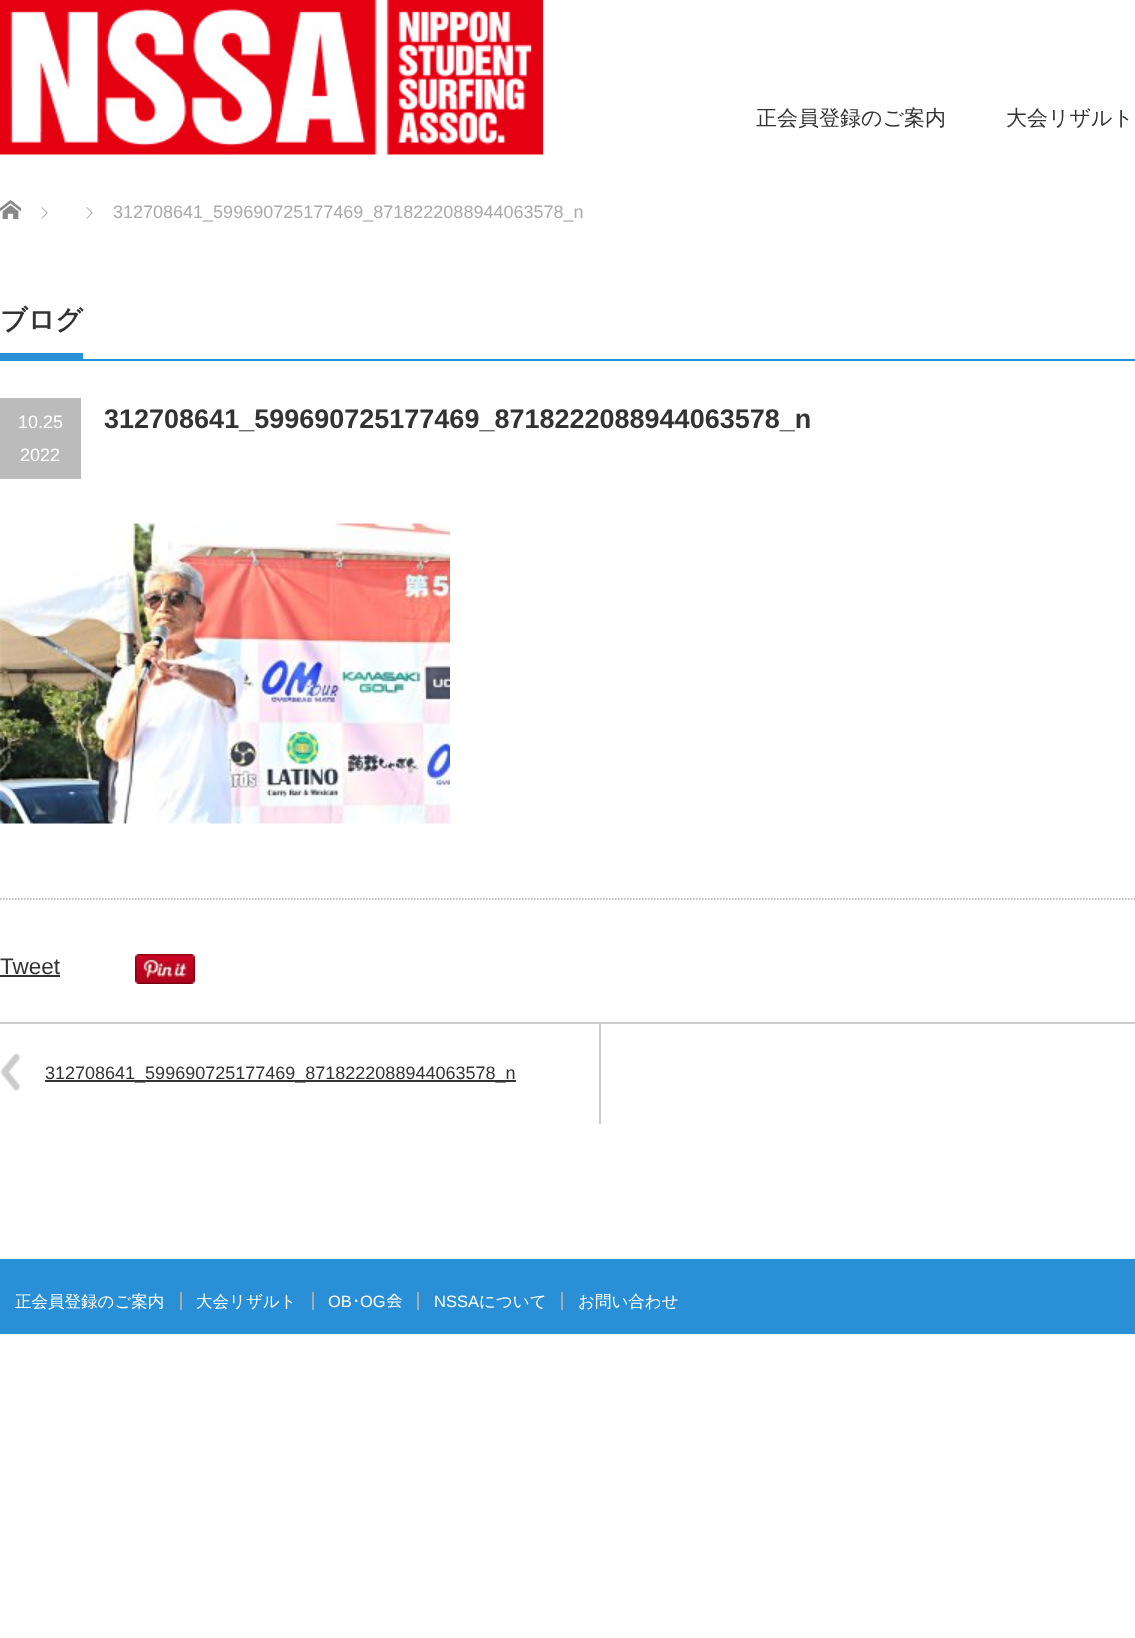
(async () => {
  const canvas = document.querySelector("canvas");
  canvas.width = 1135;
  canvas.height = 1638;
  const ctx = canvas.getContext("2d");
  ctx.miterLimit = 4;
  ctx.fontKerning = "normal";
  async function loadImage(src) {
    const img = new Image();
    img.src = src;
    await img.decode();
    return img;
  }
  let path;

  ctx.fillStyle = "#ffffff";
  ctx.fillRect(0, 0, 1135, 1638);
  ctx.drawImage(await loadImage("img/1.png"), 0, 0, 543, 155);
  ctx.drawImage(await loadImage("img/2.png"), 0, 200, 21, 19);
  ctx.drawImage(await loadImage("img/3.png"), 41, 207, 7, 12);
  ctx.drawImage(await loadImage("img/3.png"), 86, 207, 7, 12);
  for (const [x, y, w, h, color] of [
    [0, 359, 1135, 2, "#298fd6"],
    [0, 353, 83, 6, "#298fd6"],
    [0, 398, 81, 81, "#bbbbbb"],
  ]) {
    ctx.fillStyle = color;
    ctx.fillRect(x, y, w, h);
  }
  ctx.drawImage(await loadImage("img/4.png"), 0, 523, 450, 301);
  path = new Path2D("M0 899H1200");
  ctx.strokeStyle = "#aaaaaa";
  ctx.lineWidth = 1.5;
  ctx.setLineDash([1.5, 1.5]);
  ctx.stroke(path);
  ctx.fillStyle = "#333333";
  ctx.fillRect(0, 975, 60, 2);
  ctx.drawImage(await loadImage("img/5.png"), 135, 954, 60, 30);
  ctx.fillStyle = "#cccccc";
  ctx.fillRect(0, 1022, 1135, 2);
  ctx.drawImage(await loadImage("img/6.png"), 0, 1053, 20, 38);
  for (const [x, y, w, h, color] of [
    [599, 1023, 2, 101, "#cccccc"],
    [45, 1080, 471, 2, "#333333"],
    [0, 1259, 1135, 75, "#298fd6"],
    [180, 1292, 2, 18, "#aaaaaa"],
    [312, 1292, 2, 18, "#aaaaaa"],
    [417, 1292, 2, 18, "#aaaaaa"],
    [561, 1292, 2, 18, "#aaaaaa"],
  ]) {
    ctx.fillStyle = color;
    ctx.fillRect(x, y, w, h);
  }
  ctx.font = "500 21px WenQuanYi Zen Hei";
  ctx.fillStyle = "#333333";
  ctx.fillText("正会員登録のご案内", 756, 125);
  ctx.fillText("大会リザルト", 1006, 125);
  ctx.font = "18px Liberation Sans";
  ctx.fillStyle = "#aaaaaa";
  ctx.fillText("312708641_599690725177469_8718222088944063578_n", 113, 218);
  ctx.font = "bold 27px WenQuanYi Zen Hei";
  ctx.fillStyle = "#333333";
  ctx.fillText("ブログ", 0, 329);
  ctx.font = "18px Liberation Sans";
  ctx.fillStyle = "#ffffff";
  ctx.fillText("10.25", 18, 428);
  ctx.fillText("2022", 20, 461);
  ctx.font = "bold 27px Liberation Sans";
  ctx.fillStyle = "#333333";
  ctx.fillText("312708641_599690725177469_8718222088944063578_n", 104, 428);
  ctx.font = "22.5px Liberation Sans";
  ctx.fillText("Tweet", 0, 974);
  ctx.font = "18px Liberation Sans";
  ctx.fillText("312708641_599690725177469_8718222088944063578_n", 45, 1079);
  ctx.font = "500 16.5px WenQuanYi Zen Hei";
  ctx.fillStyle = "#ffffff";
  ctx.fillText("正会員登録のご案内", 15, 1307);
  ctx.fillText("大会リザルト", 196, 1307);
  ctx.font = "16.5px Liberation Sans";
  ctx.fillText("OB", 328, 1307);
  ctx.font = "16.5px IPAGothic";
  ctx.fillText("･", 352, 1307);
  ctx.font = "16.5px Liberation Sans";
  ctx.fillText("OG", 360, 1307);
  ctx.font = "16.5px IPAGothic";
  ctx.fillText("会", 386, 1307);
  ctx.font = "16.5px Liberation Sans";
  ctx.fillText("NSSA", 434, 1307);
  ctx.font = "500 16.5px WenQuanYi Zen Hei";
  ctx.fillText("について", 479, 1307);
  ctx.fillText("お問い合わせ", 578, 1307);
})();
